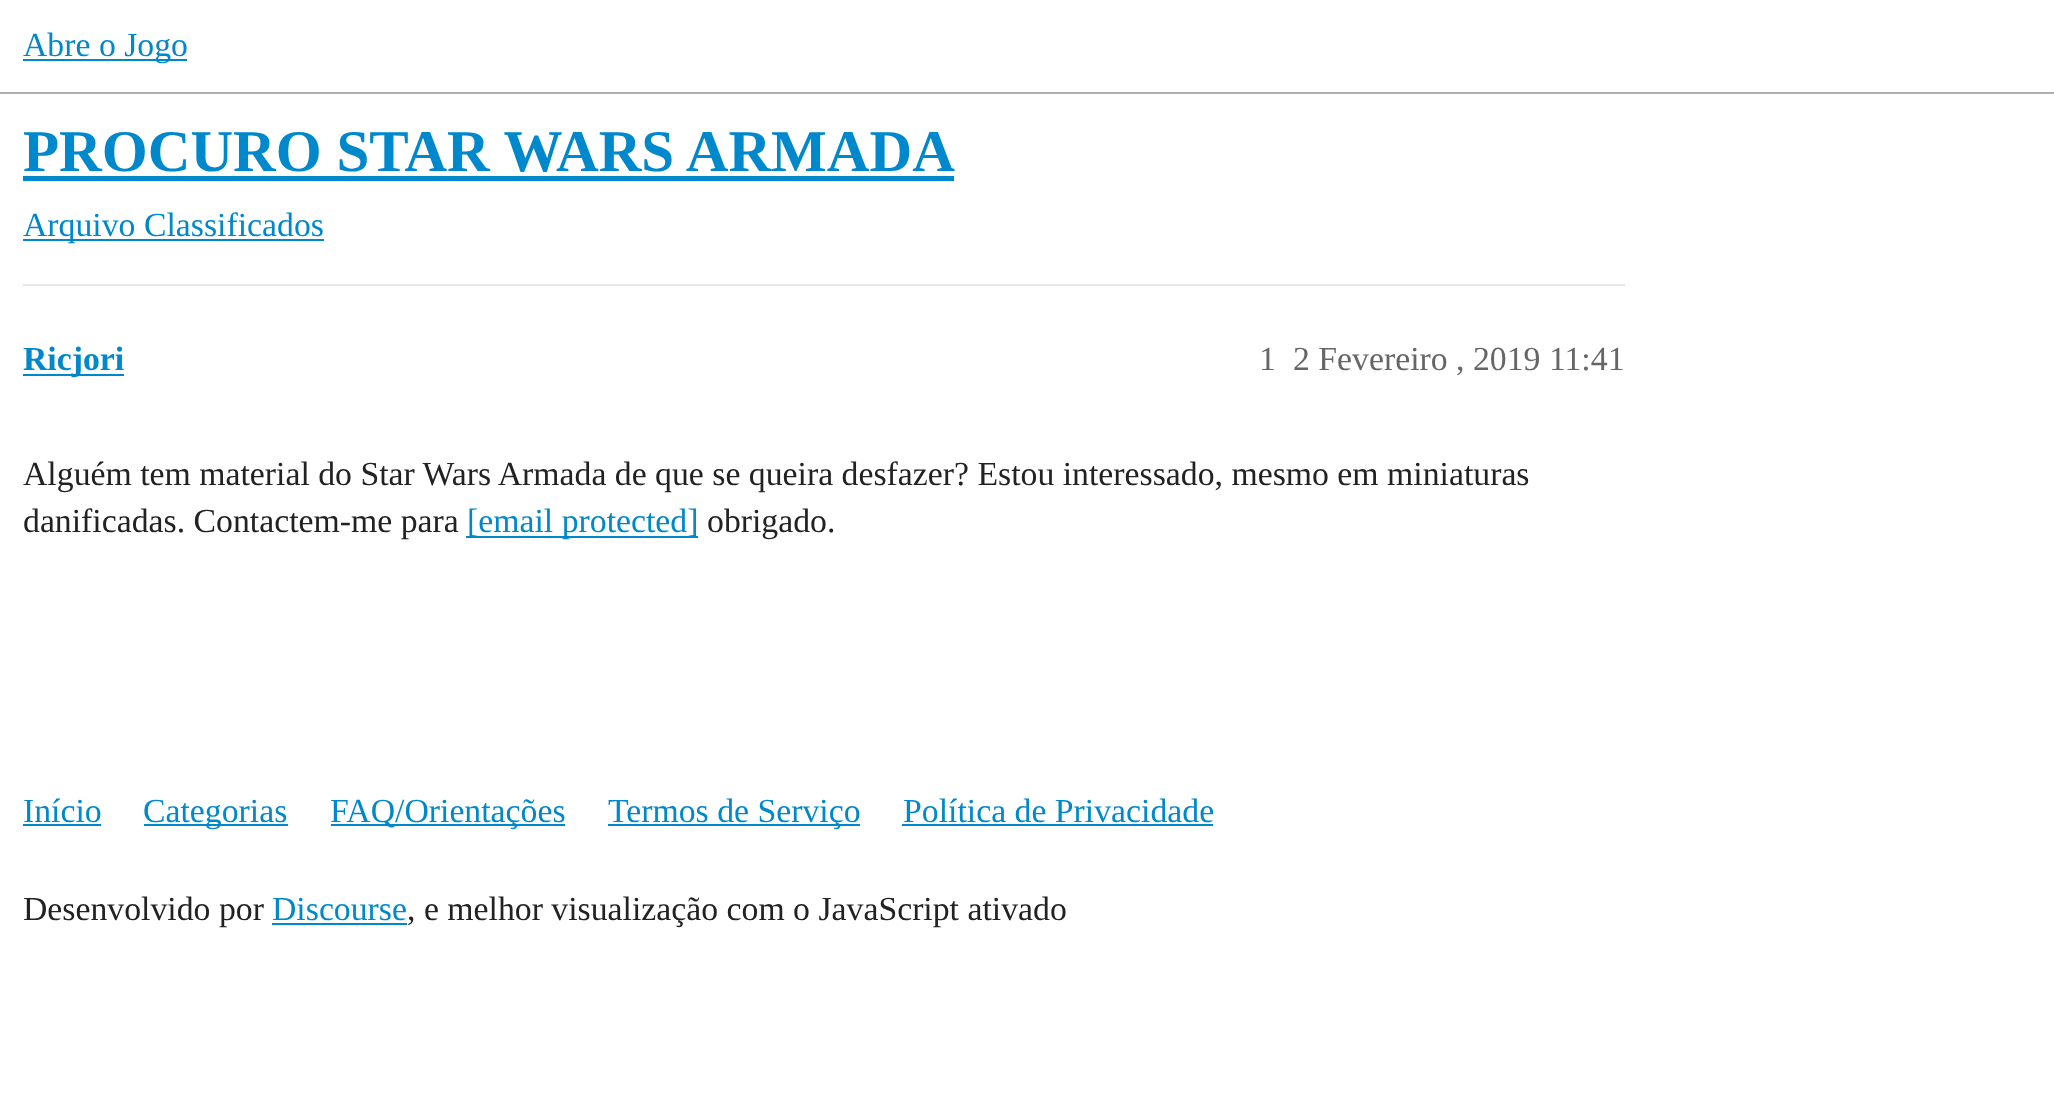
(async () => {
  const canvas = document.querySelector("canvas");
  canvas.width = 2054;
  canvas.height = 1100;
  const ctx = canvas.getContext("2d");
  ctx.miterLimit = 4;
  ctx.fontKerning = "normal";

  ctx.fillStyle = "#ffffff";
  ctx.fillRect(0, 0, 2054, 1100);
  for (const [x, y, w, h, color] of [
    [0, 92, 2054, 2, "#afafaf"],
    [23, 59, 164, 2, "#0088cc"],
    [23, 176, 931, 5, "#0088cc"],
    [23, 239, 301, 2, "#0088cc"],
    [23, 284, 1602, 2, "#e9e9e9"],
    [23, 374, 101, 2, "#0088cc"],
    [466, 536, 232, 2, "#0088cc"],
    [23, 824, 78, 2, "#0088cc"],
    [144, 824, 144, 2, "#0088cc"],
    [331, 824, 234, 2, "#0088cc"],
    [608, 824, 252, 2, "#0088cc"],
    [902, 824, 311, 2, "#0088cc"],
    [272, 923, 135, 2, "#0088cc"],
  ]) {
    ctx.fillStyle = color;
    ctx.fillRect(x, y, w, h);
  }
  ctx.font = "33.75px Liberation Serif";
  ctx.fillText("Abre o Jogo", 23, 56);
  ctx.font = "bold 59.1px Liberation Serif";
  ctx.fillText("PROCURO STAR WARS ARMADA", 23, 171);
  ctx.font = "33.75px Liberation Serif";
  ctx.fillText("Arquivo Classificados", 23, 236);
  ctx.font = "bold 33.75px Liberation Serif";
  ctx.fillText("Ricjori", 23, 370);
  ctx.font = "33.75px Liberation Serif";
  ctx.fillStyle = "#666666";
  ctx.fillText("1", 1259, 370);
  ctx.fillText("2 Fevereiro , 2019 11:41", 1293, 370);
  ctx.fillStyle = "#222222";
  ctx.fillText("Alguém tem material do Star Wars Armada de que se queira desfazer? Estou interessado, mesmo em miniaturas", 23, 485);
  ctx.fillText("danificadas. Contactem-me para", 23, 532);
  ctx.fillStyle = "#0088cc";
  ctx.fillText("[email protected]", 467, 532);
  ctx.fillStyle = "#222222";
  ctx.fillText("obrigado.", 707, 532);
  ctx.fillStyle = "#0088cc";
  for (const [text, x, y] of [
    ["Início", 23, 822],
    ["Categorias", 143, 822],
    ["FAQ/Orientações", 330, 822],
    ["Termos de Serviço", 608, 822],
    ["Política de Privacidade", 903, 822],
  ]) {
    ctx.fillText(text, x, y);
  }
  ctx.fillStyle = "#222222";
  ctx.fillText("Desenvolvido por", 23, 920);
  ctx.fillStyle = "#0088cc";
  ctx.fillText("Discourse", 272, 920);
  ctx.fillStyle = "#222222";
  ctx.fillText(", e melhor visualização com o JavaScript ativado", 407, 920);
})();
